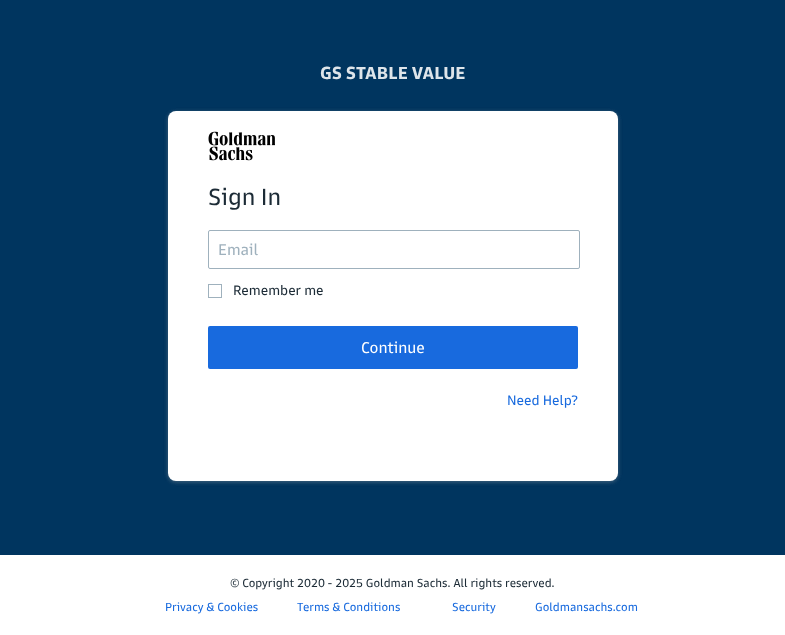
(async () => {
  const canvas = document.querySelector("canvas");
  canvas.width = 785;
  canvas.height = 635;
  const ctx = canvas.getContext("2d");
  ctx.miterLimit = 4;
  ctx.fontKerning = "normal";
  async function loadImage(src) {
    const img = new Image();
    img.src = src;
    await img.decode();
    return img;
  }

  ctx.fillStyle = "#00355f";
  ctx.fillRect(0, 0, 785, 635);
  ctx.fillStyle = "rgba(179, 179, 179, 0.2)";
  ctx.filter = "blur(2px)";
  ctx.beginPath();
  ctx.roundRect(168, 112, 450, 370, 8);
  ctx.fill();
  ctx.filter = "none";
  ctx.filter = "blur(2px)";
  ctx.beginPath();
  ctx.roundRect(168, 112, 450, 370, 8);
  ctx.fill();
  ctx.filter = "none";
  ctx.fillStyle = "#ffffff";
  ctx.beginPath();
  ctx.roundRect(168, 111, 450, 370, 8);
  ctx.fill();
  ctx.drawImage(await loadImage("img/1.png"), 208, 131, 67, 30);
  ctx.beginPath();
  ctx.roundRect(208.5, 230.5, 371, 38, 1.5);
  ctx.strokeStyle = "#9fb1bd";
  ctx.stroke();
  ctx.strokeRect(208.5, 284.5, 13, 13);
  ctx.fillStyle = "#186ade";
  ctx.beginPath();
  ctx.roundRect(208, 326, 370, 43, 2);
  ctx.fill();
  ctx.fillStyle = "#ffffff";
  ctx.fillRect(0, 555, 785, 80);
  ctx.font = "bold 18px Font";
  ctx.fillStyle = "#dee5ea";
  ctx.fillText("GS STABLE VALUE", 320, 79);
  ctx.font = "24px Font";
  ctx.fillStyle = "#1c2b36";
  ctx.fillText("Sign In", 208, 205);
  ctx.font = "16px Font";
  ctx.fillStyle = "#9fb1bd";
  ctx.fillText("Email", 218, 255);
  ctx.font = "14px Font";
  ctx.fillStyle = "#1c2b36";
  ctx.fillText("Remember me", 233, 295);
  ctx.font = "16px Font";
  ctx.fillStyle = "#ffffff";
  ctx.fillText("Continue", 361, 353);
  ctx.font = "14px Font";
  ctx.fillStyle = "#186ade";
  ctx.fillText("Need Help?", 507, 405);
  ctx.font = "12px Font";
  ctx.fillStyle = "#1c2b36";
  ctx.fillText("© Copyright 2020 - 2025 Goldman Sachs. All rights reserved.", 230, 587);
  ctx.fillStyle = "#186ade";
  for (const [text, x, y] of [
    ["Privacy & Cookies", 165, 611],
    ["Terms & Conditions", 297, 611],
    ["Security", 452, 611],
    ["Goldmansachs.com", 535, 611],
  ]) {
    ctx.fillText(text, x, y);
  }
})();
